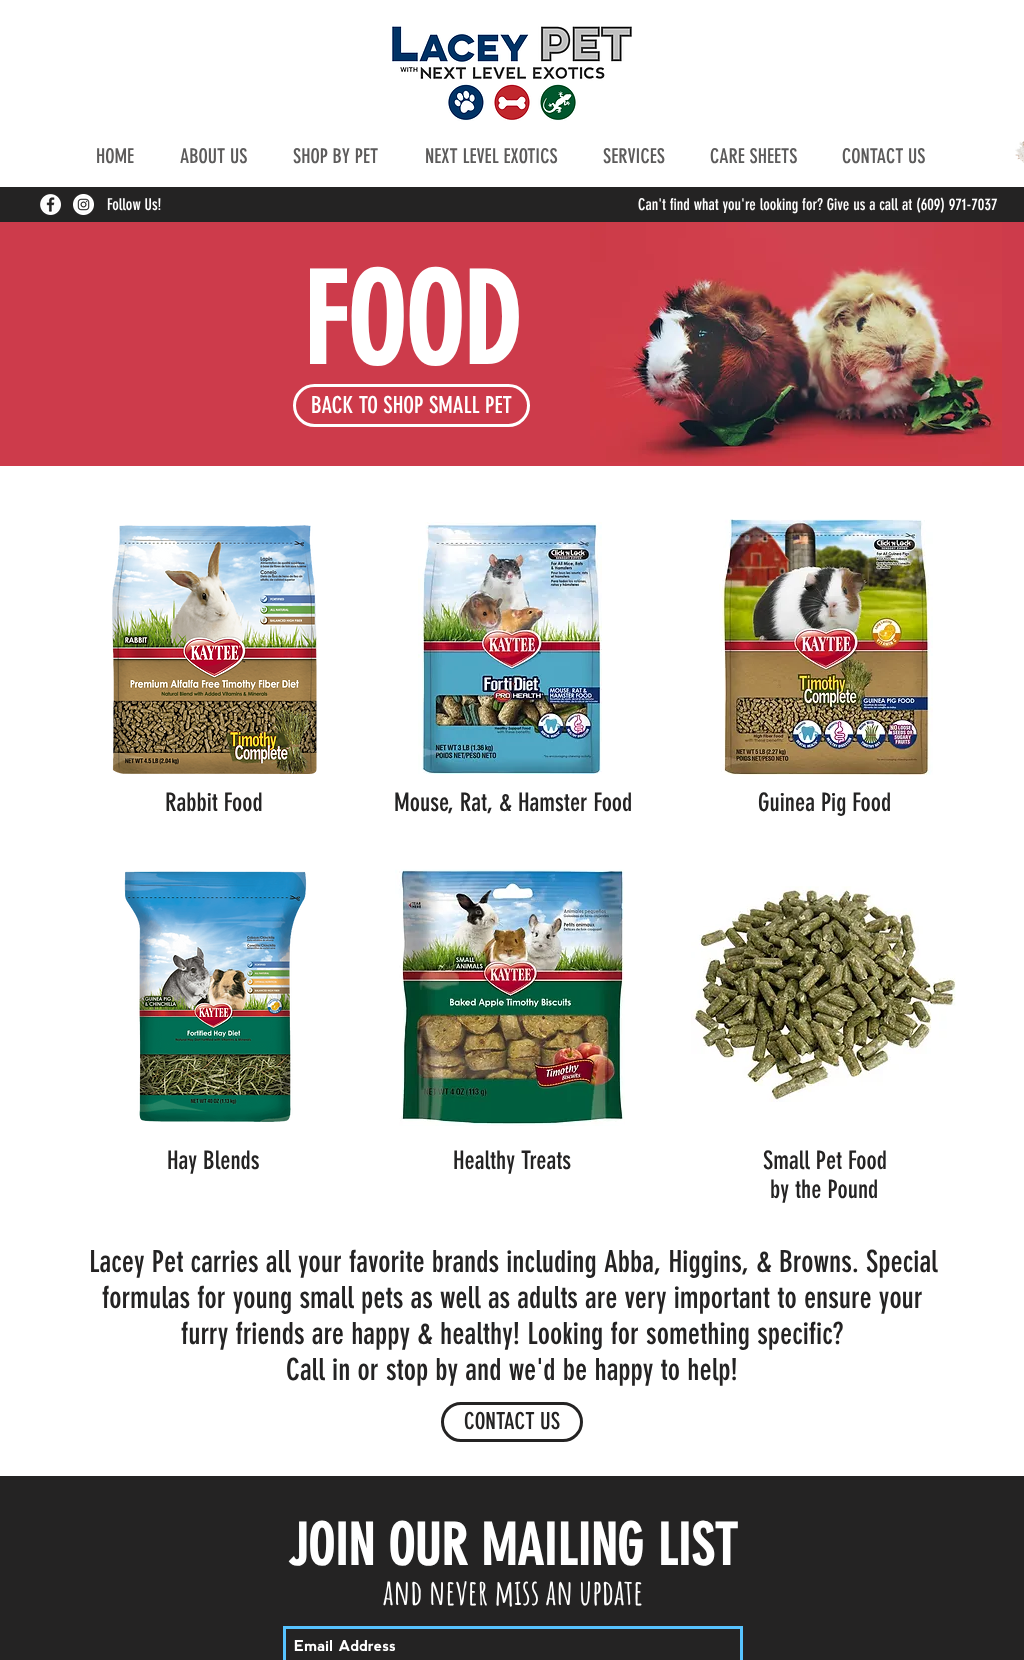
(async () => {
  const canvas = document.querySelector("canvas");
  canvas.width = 1024;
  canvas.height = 1660;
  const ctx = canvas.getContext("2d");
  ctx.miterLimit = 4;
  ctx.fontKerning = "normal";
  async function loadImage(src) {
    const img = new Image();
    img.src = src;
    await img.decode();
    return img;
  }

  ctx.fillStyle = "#ffffff";
  ctx.fillRect(0, 0, 1024, 1660);
  ctx.drawImage(await loadImage("img/1.png"), 392, 26, 240, 95);
  ctx.drawImage(await loadImage("img/2.png"), 1015, 141, 9, 22);
  ctx.fillStyle = "#242323";
  ctx.fillRect(0, 187, 1024, 35);
  ctx.drawImage(await loadImage("img/3.png"), 40, 194, 21, 21);
  ctx.drawImage(await loadImage("img/4.png"), 73, 194, 21, 21);
  ctx.fillStyle = "#cd3b4b";
  ctx.fillRect(0, 222, 1024, 244);
  ctx.drawImage(await loadImage("img/5.png"), 590, 222, 412, 243);
  ctx.beginPath();
  ctx.roundRect(294.5, 385.5, 234, 40, 20);
  ctx.strokeStyle = "#ffffff";
  ctx.lineWidth = 3;
  ctx.stroke();
  ctx.drawImage(await loadImage("img/6.png"), 112, 525, 205, 249);
  ctx.drawImage(await loadImage("img/7.png"), 418, 522, 184, 252);
  ctx.drawImage(await loadImage("img/8.png"), 719, 519, 214, 256);
  ctx.drawImage(await loadImage("img/9.png"), 124, 871, 183, 251);
  ctx.drawImage(await loadImage("img/10.png"), 395, 869, 230, 257);
  ctx.drawImage(await loadImage("img/11.png"), 691, 886, 265, 216);
  ctx.beginPath();
  ctx.roundRect(442.5, 1403.5, 139, 37, 18.5);
  ctx.strokeStyle = "#242323";
  ctx.stroke();
  ctx.fillStyle = "#242323";
  ctx.fillRect(0, 1476, 1024, 184);
  ctx.strokeStyle = "#57c3ff";
  ctx.strokeRect(284.5, 1627.5, 457, 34);
  ctx.font = "20px 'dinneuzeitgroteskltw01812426'";
  ctx.fillStyle = "#5c5b5b";
  for (const [text, x, y] of [
    ["HOME", 96, 163],
    ["ABOUT US", 180, 163],
    ["SHOP BY PET", 293, 163],
    ["NEXT LEVEL EXOTICS", 425, 163],
    ["SERVICES", 603, 163],
    ["CARE SHEETS", 710, 163],
    ["CONTACT US", 842, 163],
  ]) {
    ctx.fillText(text, x, y);
  }
  ctx.font = "16px 'dinneuzeitgroteskltw01812426'";
  ctx.fillStyle = "#ffffff";
  ctx.fillText("Follow Us!", 107, 210);
  ctx.fillText("Can't find what you're looking for? Give us a call at (609) 971-7037", 638, 210);
  ctx.font = "bold 125px 'dinneuzeitgroteskltw01812426'";
  ctx.fillText("FOOD", 303, 364);
  ctx.font = "23px 'dinneuzeitgroteskltw01812426'";
  ctx.fillText("BACK TO SHOP SMALL PET", 311, 413);
  ctx.font = "25px 'dinneuzeitgroteskltw01812426'";
  ctx.fillStyle = "#242323";
  for (const [text, x, y] of [
    ["Rabbit Food", 165, 811],
    ["Mouse, Rat, & Hamster Food", 394, 811],
    ["Guinea Pig Food", 758, 811],
    ["Hay Blends", 167, 1169],
    ["Healthy Treats", 453, 1169],
    ["Small Pet Food", 763, 1169],
    ["by the Pound", 770, 1198],
  ]) {
    ctx.fillText(text, x, y);
  }
  ctx.font = "30px 'dinneuzeitgroteskltw01812426'";
  for (const [text, x, y] of [
    ["Lacey Pet carries all your favorite brands including Abba, Higgins, & Browns. Special", 89, 1272],
    ["formulas for young small pets as well as adults are very important to ensure your", 102, 1308],
    ["furry friends are happy & healthy! Looking for something specific?", 181, 1344],
    ["Call in or stop by and we'd be happy to help!", 286, 1380],
  ]) {
    ctx.fillText(text, x, y);
  }
  ctx.font = "23px 'dinneuzeitgroteskltw01812426'";
  ctx.fillText("CONTACT US", 464, 1429);
  ctx.font = "bold 57px 'dinneuzeitgroteskltw01812426'";
  ctx.fillStyle = "#ffffff";
  ctx.fillText("JOIN OUR MAILING LIST", 288, 1565);
  ctx.font = "bold 35px Amatic SC";
  ctx.fillText("and never miss an update", 383, 1605);
  ctx.font = "bold 15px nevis";
  ctx.fillText("Email Address", 294, 1651);
})();
